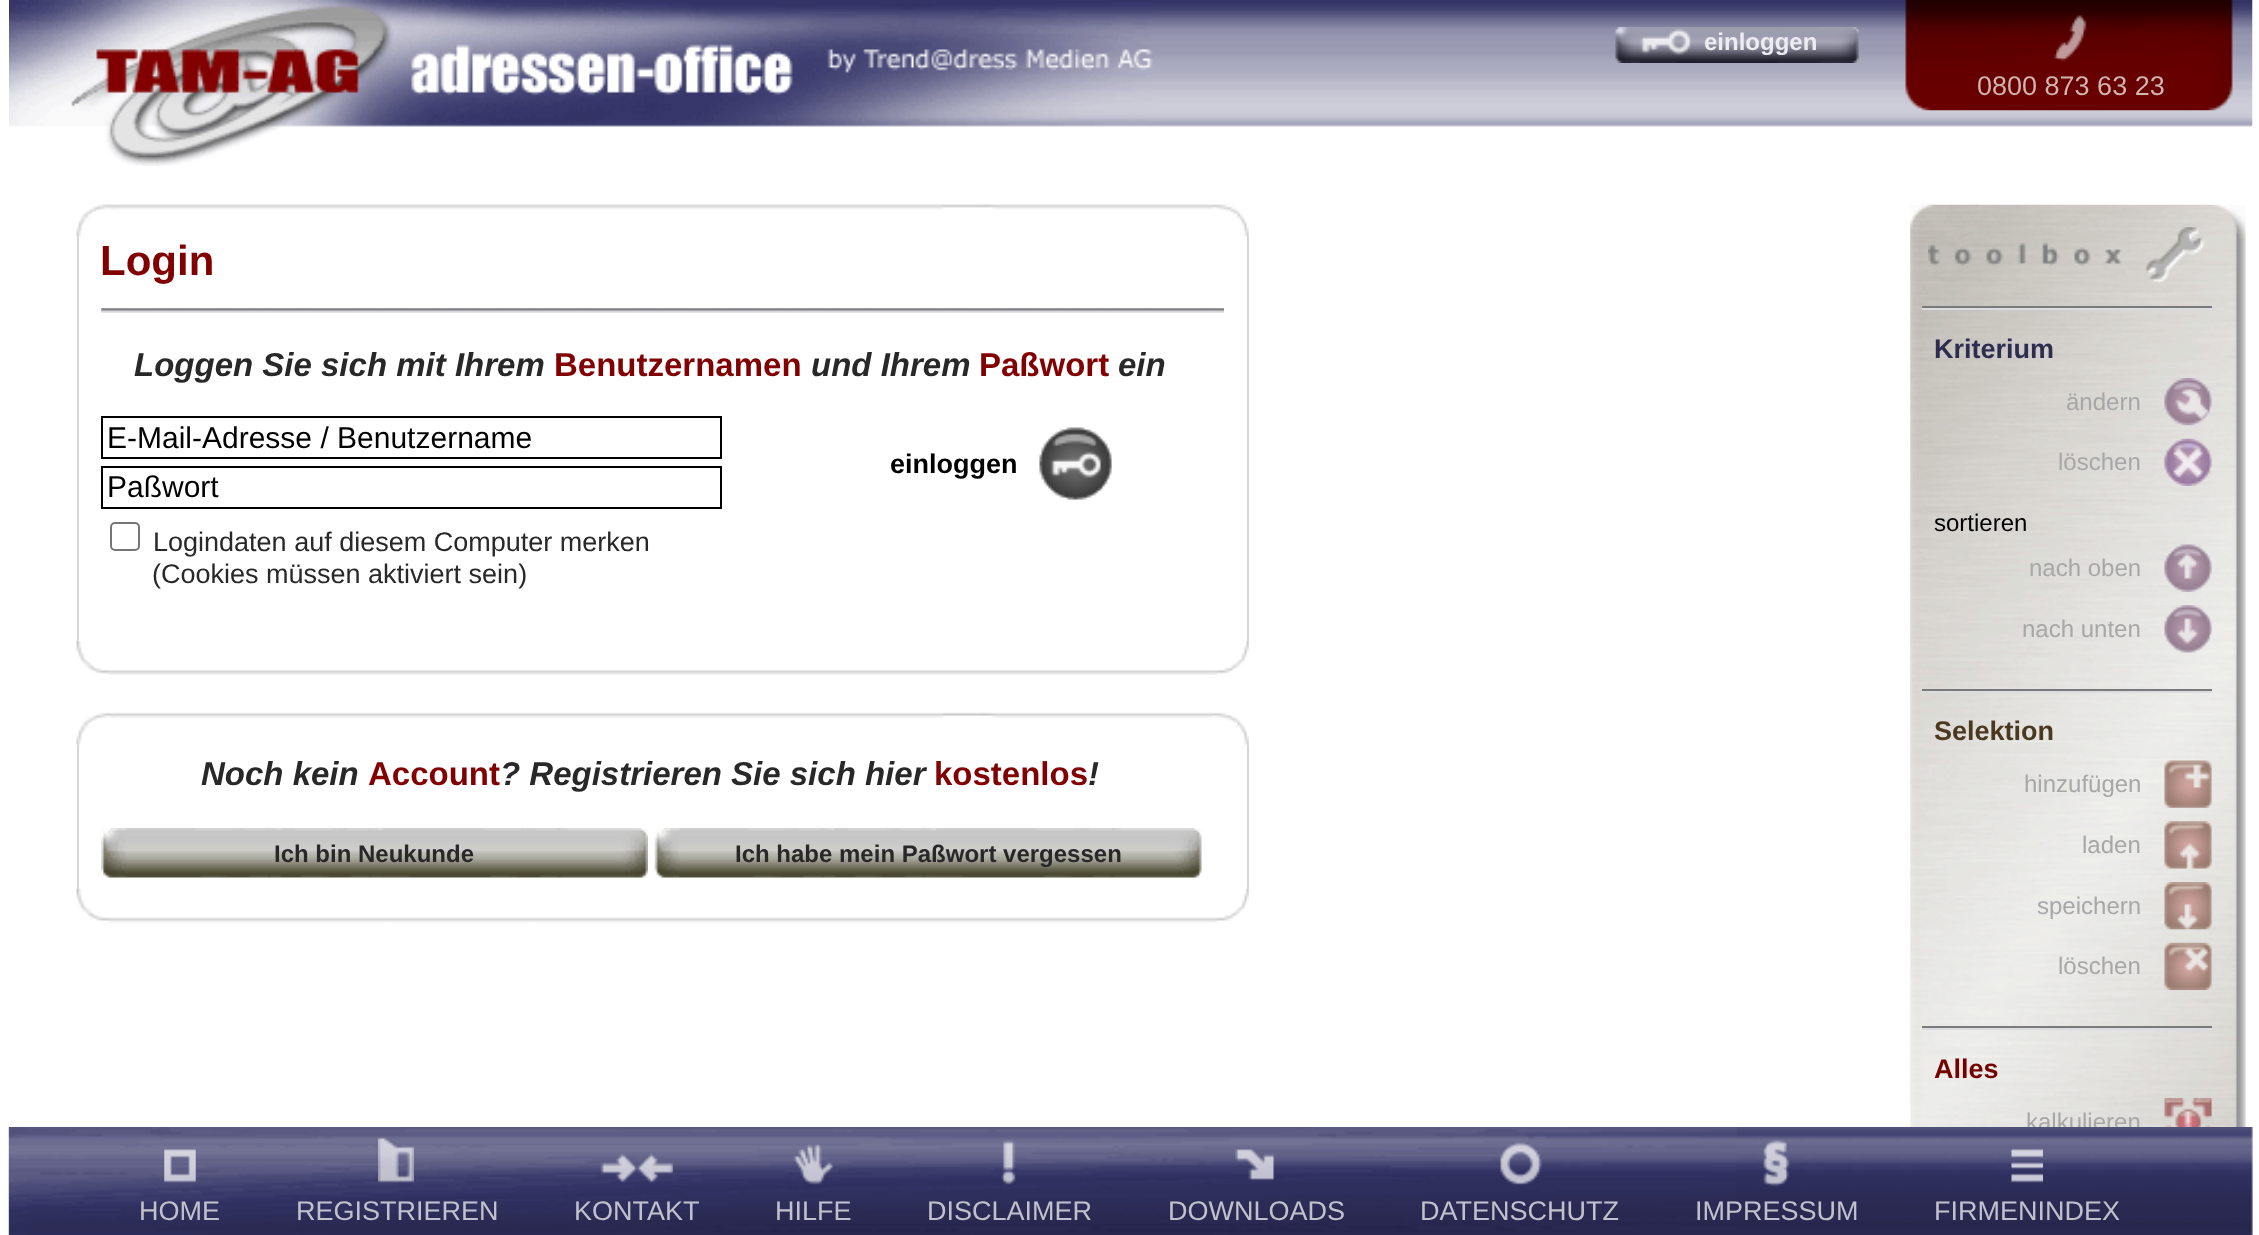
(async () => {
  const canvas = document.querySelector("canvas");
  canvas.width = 2259;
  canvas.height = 1235;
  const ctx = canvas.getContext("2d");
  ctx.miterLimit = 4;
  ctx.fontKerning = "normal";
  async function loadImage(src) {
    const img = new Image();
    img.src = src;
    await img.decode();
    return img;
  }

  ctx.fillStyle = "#ffffff";
  ctx.fillRect(0, 0, 2259, 1235);
  ctx.drawImage(await loadImage("img/1.png"), 1153, 0, 1100, 127);
  ctx.drawImage(await loadImage("img/2.png"), 9, 0, 1144, 166);
  ctx.drawImage(await loadImage("img/3.png"), 1615, 27, 244, 36);
  ctx.drawImage(await loadImage("img/4.png"), 1905, 0, 328, 111);
  ctx.drawImage(await loadImage("img/5.png"), 2053, 15, 34, 47);
  ctx.drawImage(await loadImage("img/6.png"), 76, 204, 1173, 33);
  ctx.fillStyle = "#d7d7d7";
  ctx.fillRect(1247, 236, 2, 405);
  ctx.fillRect(77, 236, 2, 405);
  ctx.drawImage(await loadImage("img/7.png"), 101, 308, 1123, 5);
  ctx.strokeStyle = "#000000";
  ctx.lineWidth = 2;
  ctx.strokeRect(102, 417, 619, 41);
  ctx.strokeRect(102, 467, 619, 41);
  ctx.drawImage(await loadImage("img/8.png"), 1039, 427, 73, 73);
  ctx.beginPath();
  ctx.roundRect(111, 523, 28, 27, 4);
  ctx.strokeStyle = "#767676";
  ctx.stroke();
  ctx.drawImage(await loadImage("img/9.png"), 76, 641, 1173, 34);
  ctx.drawImage(await loadImage("img/10.png"), 76, 712, 1173, 33);
  ctx.drawImage(await loadImage("img/13.png"), 76, 888, 1173, 35);
  ctx.fillRect(1247, 745, 2, 144);
  ctx.fillRect(77, 745, 2, 144);
  ctx.drawImage(await loadImage("img/11.png"), 101, 828, 547, 50);
  ctx.drawImage(await loadImage("img/12.png"), 654, 828, 548, 50);
  ctx.drawImage(await loadImage("img/14.png"), 1910, 204, 336, 923);
  ctx.drawImage(await loadImage("img/15.png"), 1928, 227, 277, 56);
  ctx.fillStyle = "#7a7a7b";
  ctx.fillRect(1922, 306, 290, 2);
  ctx.fillStyle = "#dbdce1";
  ctx.fillRect(1922, 308, 290, 2);
  ctx.drawImage(await loadImage("img/16.png"), 2164, 378, 48, 48);
  ctx.drawImage(await loadImage("img/17.png"), 2164, 438, 48, 48);
  ctx.drawImage(await loadImage("img/18.png"), 2164, 544, 48, 48);
  ctx.drawImage(await loadImage("img/19.png"), 2164, 605, 48, 48);
  ctx.fillStyle = "#7a7a7b";
  ctx.fillRect(1922, 689, 290, 2);
  ctx.fillStyle = "#dbdce1";
  ctx.fillRect(1922, 691, 290, 2);
  ctx.drawImage(await loadImage("img/20.png"), 2164, 760, 48, 48);
  ctx.drawImage(await loadImage("img/21.png"), 2164, 821, 48, 48);
  ctx.drawImage(await loadImage("img/22.png"), 2164, 882, 48, 48);
  ctx.drawImage(await loadImage("img/23.png"), 2164, 942, 48, 48);
  ctx.fillStyle = "#7a7a7b";
  ctx.fillRect(1922, 1026, 290, 2);
  ctx.fillStyle = "#dbdce1";
  ctx.fillRect(1922, 1028, 290, 2);
  ctx.drawImage(await loadImage("img/24.png"), 2164, 1098, 48, 29);
  ctx.font = "bold 24px Liberation Sans";
  ctx.fillStyle = "#edecf1";
  ctx.fillText("einloggen", 1704, 50);
  ctx.font = "27px Liberation Sans";
  ctx.fillStyle = "#d1b3b1";
  ctx.fillText("0800 873 63 23", 1977, 95);
  ctx.font = "bold 42px Liberation Sans";
  ctx.fillStyle = "#810001";
  ctx.fillText("Login", 100, 275);
  ctx.font = "italic bold 33px Liberation Sans";
  ctx.fillStyle = "#282828";
  ctx.fillText("Loggen Sie sich mit Ihrem", 134, 376);
  ctx.font = "bold 33px Liberation Sans";
  ctx.fillStyle = "#810001";
  ctx.fillText("Benutzernamen", 554, 376);
  ctx.font = "italic bold 33px Liberation Sans";
  ctx.fillStyle = "#282828";
  ctx.fillText("und Ihrem", 811, 376);
  ctx.font = "bold 33px Liberation Sans";
  ctx.fillStyle = "#810001";
  ctx.fillText("Paßwort", 979, 376);
  ctx.font = "italic bold 33px Liberation Sans";
  ctx.fillStyle = "#282828";
  ctx.fillText("ein", 1118, 376);
  ctx.font = "30px Liberation Sans";
  ctx.fillStyle = "#000000";
  ctx.fillText("E-Mail-Adresse / Benutzername", 107, 448);
  ctx.fillText("Paßwort", 107, 497);
  ctx.font = "bold 27px Liberation Sans";
  ctx.fillText("einloggen", 890, 473);
  ctx.font = "27px Liberation Sans";
  ctx.fillStyle = "#282828";
  ctx.fillText("Logindaten auf diesem Computer merken", 153, 551);
  ctx.fillText("(Cookies müssen aktiviert sein)", 152, 583);
  ctx.font = "italic bold 33px Liberation Sans";
  ctx.fillText("Noch kein", 201, 785);
  ctx.font = "bold 33px Liberation Sans";
  ctx.fillStyle = "#810001";
  ctx.fillText("Account", 368, 785);
  ctx.font = "italic bold 33px Liberation Sans";
  ctx.fillStyle = "#282828";
  ctx.fillText("? Registrieren Sie sich hier", 500, 785);
  ctx.font = "bold 33px Liberation Sans";
  ctx.fillStyle = "#810001";
  ctx.fillText("kostenlos", 934, 785);
  ctx.font = "italic bold 33px Liberation Sans";
  ctx.fillStyle = "#282828";
  ctx.fillText("!", 1088, 785);
  ctx.font = "bold 24px Liberation Sans";
  ctx.fillText("Ich bin Neukunde", 274, 862);
  ctx.fillText("Ich habe mein Paßwort vergessen", 735, 862);
  ctx.font = "bold 27px Liberation Sans";
  ctx.fillStyle = "#2d2d51";
  ctx.fillText("Kriterium", 1934, 358);
  ctx.font = "24px Liberation Sans";
  ctx.fillStyle = "#a7a7a7";
  ctx.fillText("ändern", 2066, 410);
  ctx.fillText("löschen", 2058, 470);
  ctx.fillStyle = "#000000";
  ctx.fillText("sortieren", 1934, 531);
  ctx.fillStyle = "#a7a7a7";
  ctx.fillText("nach oben", 2029, 576);
  ctx.fillText("nach unten", 2022, 637);
  ctx.font = "bold 27px Liberation Sans";
  ctx.fillStyle = "#4c381e";
  ctx.fillText("Selektion", 1934, 740);
  ctx.font = "24px Liberation Sans";
  ctx.fillStyle = "#a7a7a7";
  for (const [text, x, y] of [
    ["hinzufügen", 2024, 792],
    ["laden", 2082, 853],
    ["speichern", 2037, 914],
    ["löschen", 2058, 974],
  ]) {
    ctx.fillText(text, x, y);
  }
  ctx.font = "bold 27px Liberation Sans";
  ctx.fillStyle = "#750000";
  ctx.fillText("Alles", 1934, 1078);
  ctx.font = "24px Liberation Sans";
  ctx.fillStyle = "#a7a7a7";
  ctx.fillText("kalkulieren", 2026, 1130);
  ctx.drawImage(await loadImage("img/25.png"), 8, 1127, 2245, 108);
  ctx.drawImage(await loadImage("img/26.png"), 9, 1127, 1728, 108);
  ctx.drawImage(await loadImage("img/27.png"), 164, 1149, 32, 34);
  ctx.font = "27px Liberation Sans";
  ctx.fillStyle = "#c1c1cd";
  ctx.fillText("HOME", 139, 1220);
  ctx.drawImage(await loadImage("img/28.png"), 378, 1137, 36, 46);
  ctx.fillText("REGISTRIEREN", 296, 1220);
  ctx.drawImage(await loadImage("img/29.png"), 600, 1153, 73, 30);
  ctx.fillText("KONTAKT", 574, 1220);
  ctx.drawImage(await loadImage("img/30.png"), 793, 1144, 41, 41);
  ctx.fillText("HILFE", 775, 1220);
  ctx.drawImage(await loadImage("img/31.png"), 1001, 1140, 15, 45);
  ctx.fillText("DISCLAIMER", 927, 1220);
  ctx.drawImage(await loadImage("img/32.png"), 1235, 1149, 40, 32);
  ctx.fillText("DOWNLOADS", 1168, 1220);
  ctx.drawImage(await loadImage("img/33.png"), 1500, 1142, 42, 43);
  ctx.fillText("DATENSCHUTZ", 1420, 1220);
  ctx.drawImage(await loadImage("img/34.png"), 1763, 1140, 27, 47);
  ctx.fillText("IMPRESSUM", 1695, 1220);
  ctx.drawImage(await loadImage("img/35.png"), 2011, 1149, 32, 34);
  ctx.fillText("FIRMENINDEX", 1934, 1220);
})();
